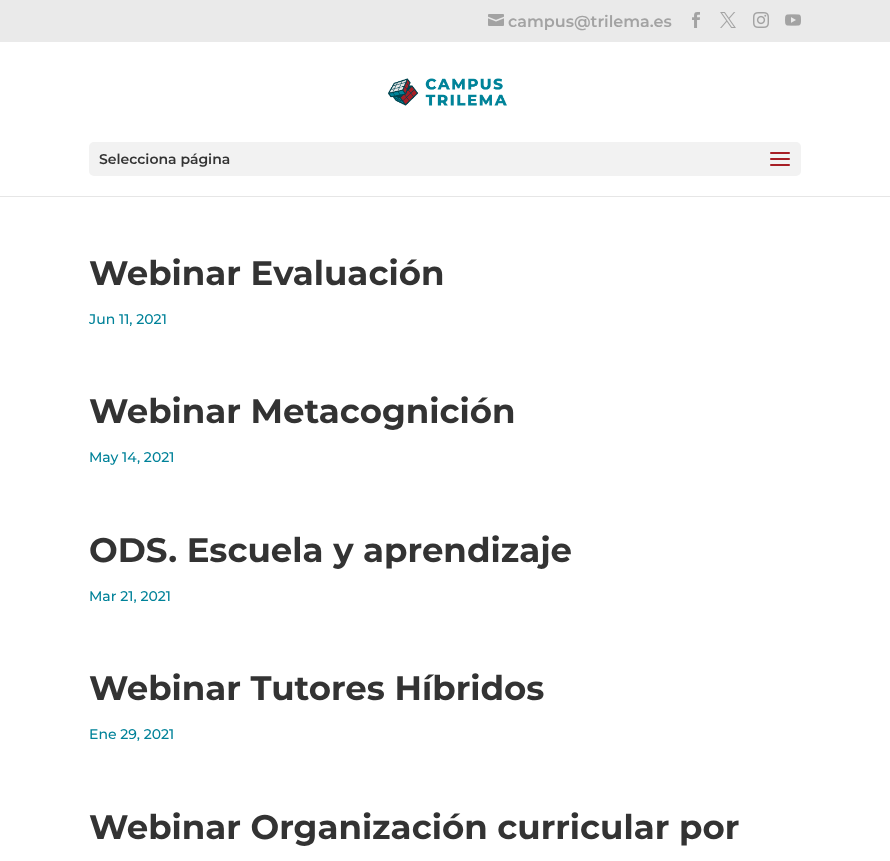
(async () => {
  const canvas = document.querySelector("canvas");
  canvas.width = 890;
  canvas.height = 861;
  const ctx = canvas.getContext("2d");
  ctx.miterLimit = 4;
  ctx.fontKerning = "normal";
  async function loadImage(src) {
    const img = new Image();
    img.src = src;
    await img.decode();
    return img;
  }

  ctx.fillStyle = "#ffffff";
  ctx.fillRect(0, 0, 890, 861);
  ctx.fillStyle = "#eaeaea";
  ctx.fillRect(0, 0, 890, 42);
  ctx.drawImage(await loadImage("img/1.png"), 488, 14, 16, 12);
  ctx.drawImage(await loadImage("img/2.png"), 692, 12, 8, 16);
  ctx.drawImage(await loadImage("img/3.png"), 720, 12, 16, 16);
  ctx.drawImage(await loadImage("img/4.png"), 753, 12, 16, 16);
  ctx.drawImage(await loadImage("img/5.png"), 785, 14, 16, 12);
  ctx.fillStyle = "#e6e6e6";
  ctx.fillRect(0, 196, 890, 1);
  ctx.drawImage(await loadImage("img/6.png"), 388, 78, 119, 28);
  ctx.fillStyle = "#f2f2f2";
  ctx.beginPath();
  ctx.roundRect(89, 142, 712, 34, 5);
  ctx.fill();
  ctx.drawImage(await loadImage("img/7.png"), 770, 152, 20, 14);
  ctx.font = "600 16px Montserrat";
  ctx.fillStyle = "#a3a3a3";
  ctx.fillText("campus@trilema.es", 508, 27);
  ctx.font = "600 14px Montserrat";
  ctx.fillStyle = "#333333";
  ctx.fillText("Selecciona página", 99, 164);
  ctx.font = "bold 34px Montserrat";
  ctx.fillText("Webinar Evaluación", 89, 285);
  ctx.font = "500 14px Montserrat";
  ctx.fillStyle = "#008299";
  ctx.fillText("Jun 11, 2021", 89, 324);
  ctx.font = "bold 34px Montserrat";
  ctx.fillStyle = "#333333";
  ctx.fillText("Webinar Metacognición", 89, 423);
  ctx.font = "500 14px Montserrat";
  ctx.fillStyle = "#008299";
  ctx.fillText("May 14, 2021", 89, 462);
  ctx.font = "bold 34px Montserrat";
  ctx.fillStyle = "#333333";
  ctx.fillText("ODS. Escuela y aprendizaje", 89, 562);
  ctx.font = "500 14px Montserrat";
  ctx.fillStyle = "#008299";
  ctx.fillText("Mar 21, 2021", 89, 601);
  ctx.font = "bold 34px Montserrat";
  ctx.fillStyle = "#333333";
  ctx.fillText("Webinar Tutores Híbridos", 89, 700);
  ctx.font = "500 14px Montserrat";
  ctx.fillStyle = "#008299";
  ctx.fillText("Ene 29, 2021", 89, 739);
  ctx.font = "bold 34px Montserrat";
  ctx.fillStyle = "#333333";
  ctx.fillText("Webinar Organización curricular por", 89, 839);
})();
